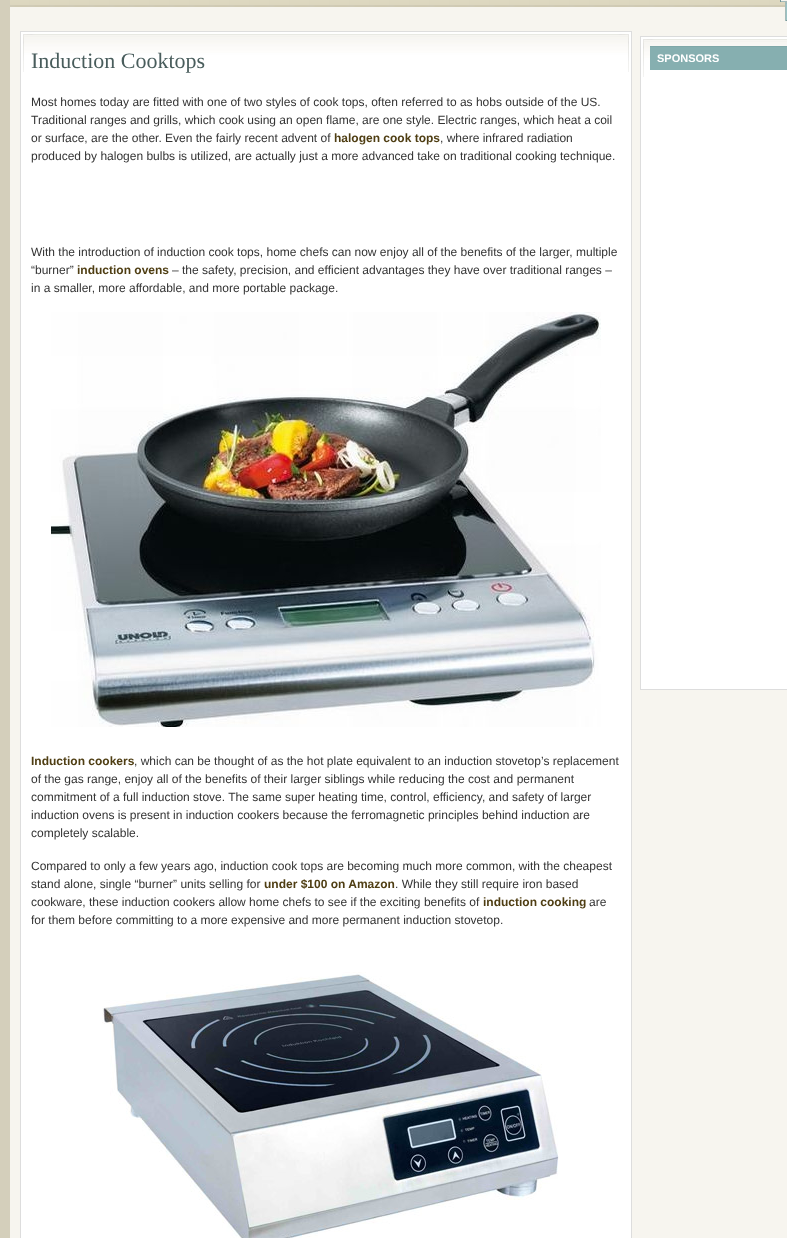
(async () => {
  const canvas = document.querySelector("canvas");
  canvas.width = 787;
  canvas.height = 1238;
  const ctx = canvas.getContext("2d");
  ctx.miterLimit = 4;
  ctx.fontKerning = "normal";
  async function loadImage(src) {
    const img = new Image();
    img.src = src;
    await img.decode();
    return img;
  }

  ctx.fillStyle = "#f7f5ef";
  ctx.fillRect(0, 0, 787, 1238);
  ctx.strokeStyle = "#d4cfbb";
  ctx.lineWidth = 10;
  ctx.strokeRect(5, -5, 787, 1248);
  ctx.drawImage(await loadImage("img/1.png"), 10, 0, 775, 7);
  for (const [x, y, w, h, color] of [
    [780, 0, 7, 1, "#f7f5ef"],
    [780, 1, 7, 1, "#a3bab9"],
    [780, 0, 1, 2, "#759697"],
    [786, 2, 1, 2, "#93bbbc"],
    [786, 4, 1, 17, "#9ac3c4"],
    [785, 2, 2, 1, "#a3bab9"],
    [785, 20, 2, 1, "#759697"],
    [785, 2, 1, 19, "#a3bab9"],
    [21, 32, 610, 1206, "#ffffff"],
  ]) {
    ctx.fillStyle = color;
    ctx.fillRect(x, y, w, h);
  }
  ctx.drawImage(await loadImage("img/2.png"), 23, 34, 606, 38);
  ctx.strokeStyle = "#dddddd";
  ctx.lineWidth = 1;
  ctx.strokeRect(20.5, 31.5, 611, 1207);
  ctx.drawImage(await loadImage("img/3.png"), 51, 312, 550, 415);
  ctx.drawImage(await loadImage("img/4.png"), 102, 972, 457, 266);
  ctx.fillRect(641, 37, 146, 652);
  ctx.drawImage(await loadImage("img/5.png"), 643, 39, 144, 38);
  ctx.strokeRect(640.5, 36.5, 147, 653);
  ctx.fillStyle = "#86afb0";
  ctx.fillRect(650, 47, 137, 23);
  ctx.fillStyle = "#7fa7a8";
  ctx.fillRect(650, 46, 137, 1);
  ctx.font = "22px Liberation Serif";
  ctx.fillStyle = "#495d5c";
  ctx.fillText("Induction Cooktops", 31, 68);
  ctx.font = "12px Liberation Sans";
  ctx.fillStyle = "#333333";
  for (const [text, x, y] of [
    ["Most homes today are fitted with one of two styles of cook tops, often referred to as hobs outside of the US.", 31, 106],
    ["Traditional ranges and grills, which cook using an open flame, are one style. Electric ranges, which heat a coil", 31, 124],
    ["or surface, are the other. Even the fairly recent advent of", 31, 142],
  ]) {
    ctx.fillText(text, x, y);
  }
  ctx.font = "bold 12px Liberation Sans";
  ctx.fillStyle = "#4f3e13";
  ctx.fillText("halogen cook tops", 334, 142);
  ctx.font = "12px Liberation Sans";
  ctx.fillStyle = "#333333";
  for (const [text, x, y] of [
    [", where infrared radiation", 440, 142],
    ["produced by halogen bulbs is utilized, are actually just a more advanced take on traditional cooking technique.", 31, 160],
    ["With the introduction of induction cook tops, home chefs can now enjoy all of the benefits of the larger, multiple", 31, 256],
    ["“burner”", 31, 274],
  ]) {
    ctx.fillText(text, x, y);
  }
  ctx.font = "bold 12px Liberation Sans";
  ctx.fillStyle = "#4f3e13";
  ctx.fillText("induction ovens", 77, 274);
  ctx.font = "12px Liberation Sans";
  ctx.fillStyle = "#333333";
  ctx.fillText("– the safety, precision, and efficient advantages they have over traditional ranges –", 172, 274);
  ctx.fillText("in a smaller, more affordable, and more portable package.", 31, 292);
  ctx.font = "bold 12px Liberation Sans";
  ctx.fillStyle = "#4f3e13";
  ctx.fillText("Induction cookers", 31, 765);
  ctx.font = "12px Liberation Sans";
  ctx.fillStyle = "#333333";
  for (const [text, x, y] of [
    [", which can be thought of as the hot plate equivalent to an induction stovetop’s replacement", 134, 765],
    ["of the gas range, enjoy all of the benefits of their larger siblings while reducing the cost and permanent", 31, 783],
    ["commitment of a full induction stove. The same super heating time, control, efficiency, and safety of larger", 31, 801],
    ["induction ovens is present in induction cookers because the ferromagnetic principles behind induction are", 31, 819],
    ["completely scalable.", 31, 837],
    ["Compared to only a few years ago, induction cook tops are becoming much more common, with the cheapest", 31, 870],
    ["stand alone, single “burner” units selling for", 31, 888],
  ]) {
    ctx.fillText(text, x, y);
  }
  ctx.font = "bold 12px Liberation Sans";
  ctx.fillStyle = "#4f3e13";
  ctx.fillText("under $100 on Amazon", 264, 888);
  ctx.font = "12px Liberation Sans";
  ctx.fillStyle = "#333333";
  ctx.fillText(". While they still require iron based", 395, 888);
  ctx.fillText("cookware, these induction cookers allow home chefs to see if the exciting benefits of", 31, 906);
  ctx.font = "bold 12px Liberation Sans";
  ctx.fillStyle = "#4f3e13";
  ctx.fillText("induction cooking", 483, 906);
  ctx.font = "12px Liberation Sans";
  ctx.fillStyle = "#333333";
  ctx.fillText("are", 589, 906);
  ctx.fillText("for them before committing to a more expensive and more permanent induction stovetop.", 31, 924);
  ctx.font = "bold 11px Liberation Sans";
  ctx.fillStyle = "#ffffff";
  ctx.fillText("SPONSORS", 657, 62);
})();
